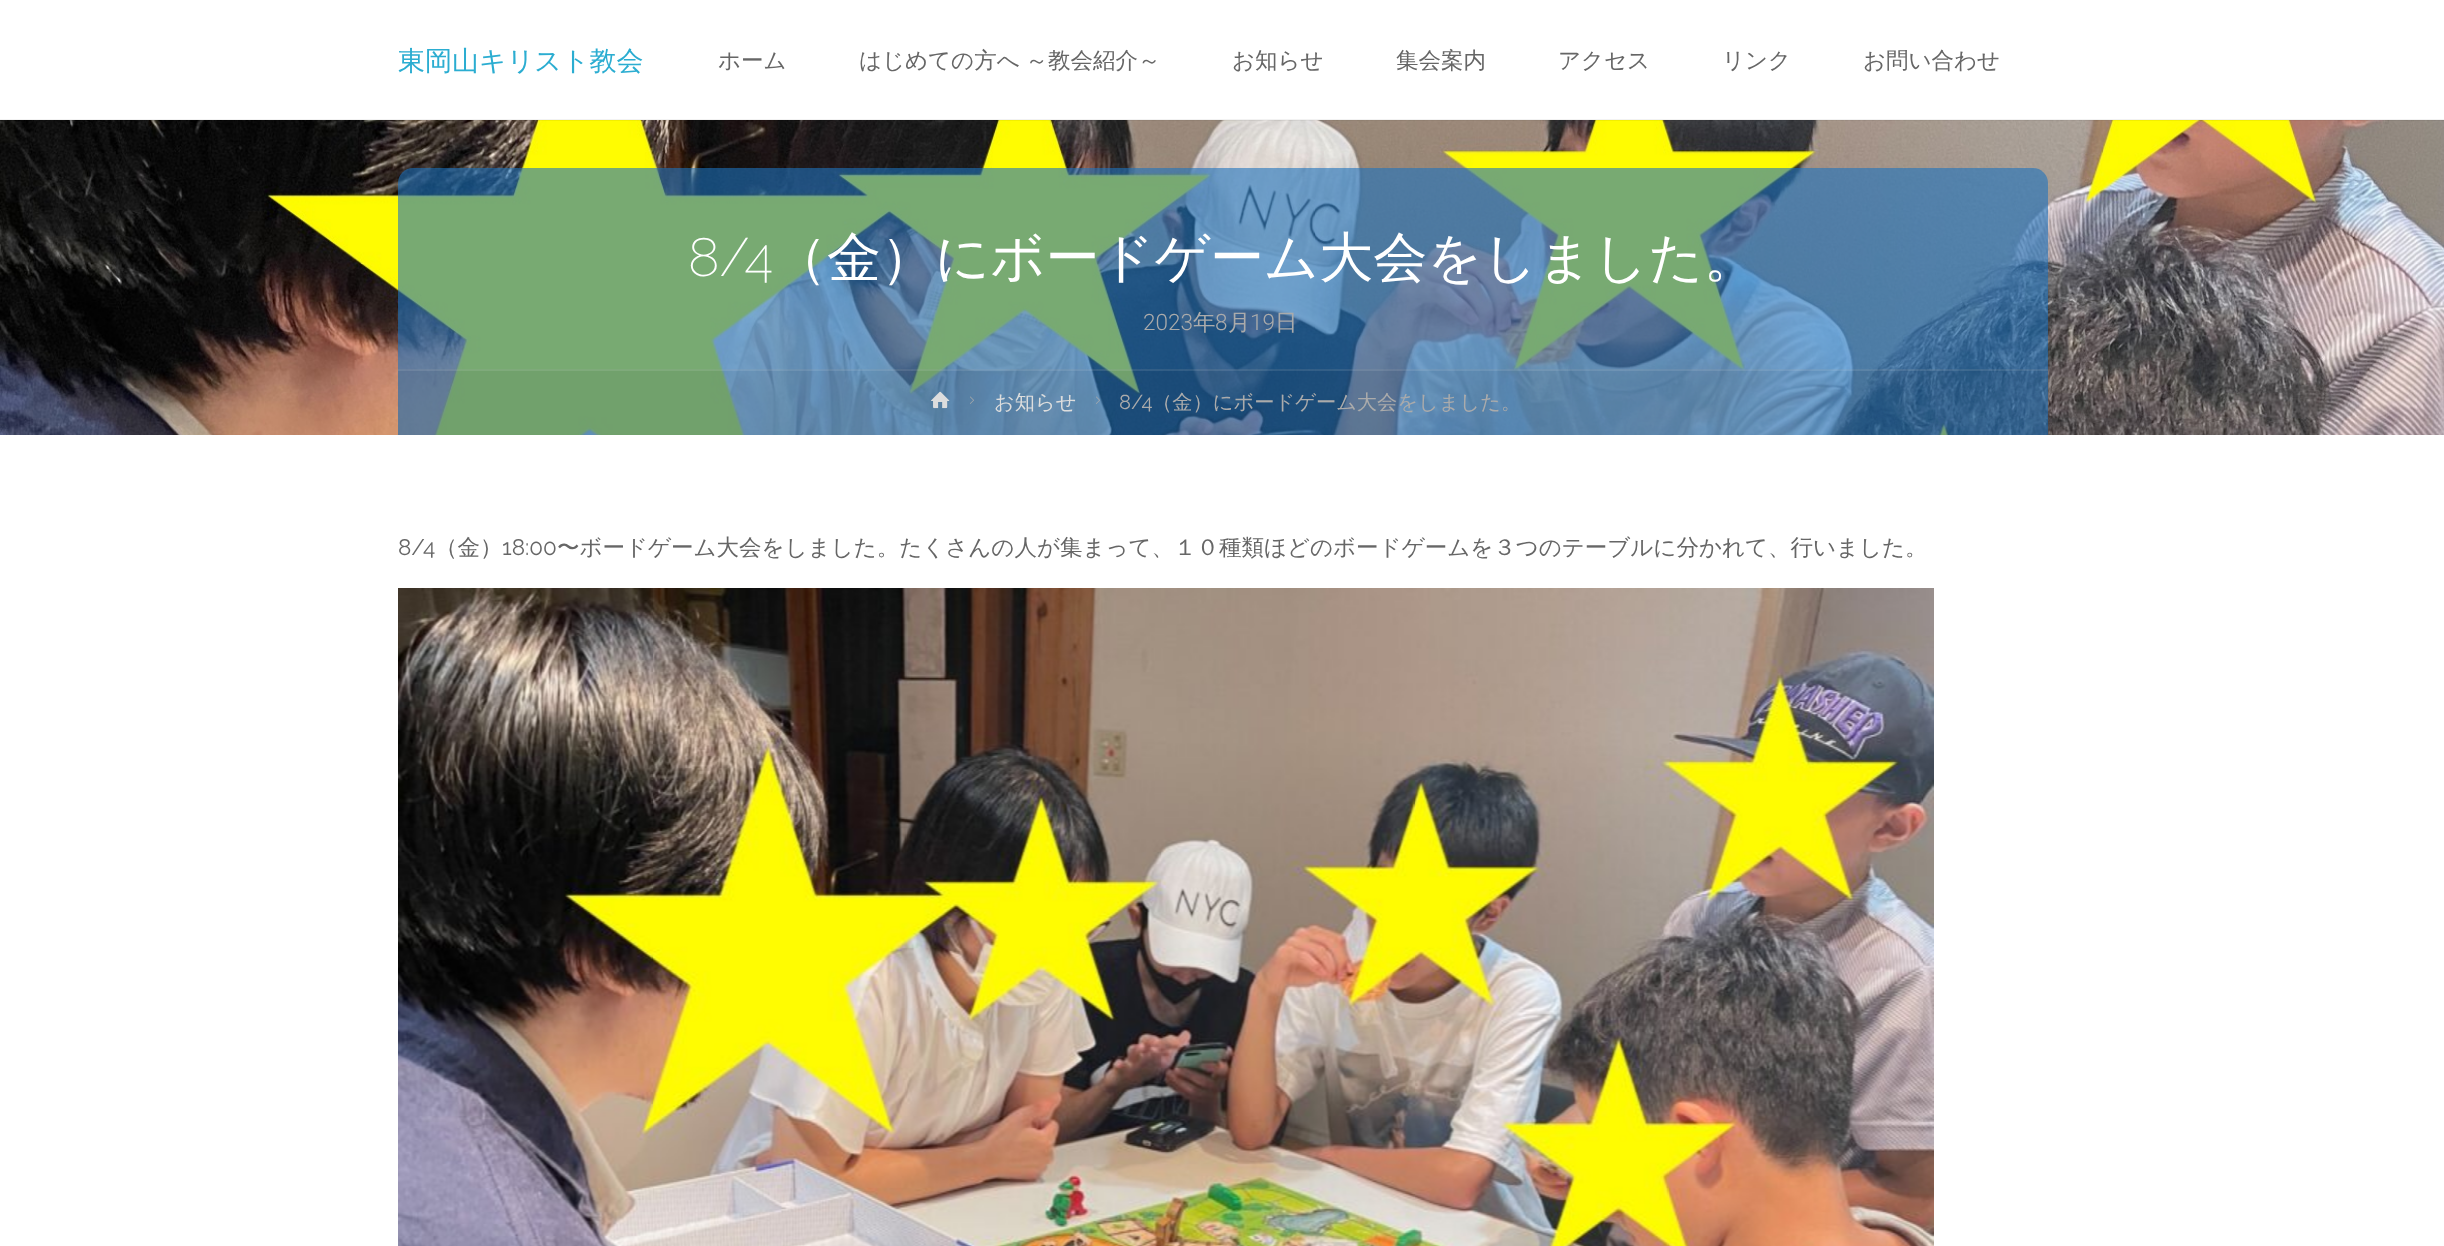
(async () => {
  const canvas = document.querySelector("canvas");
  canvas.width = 2444;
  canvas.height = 1246;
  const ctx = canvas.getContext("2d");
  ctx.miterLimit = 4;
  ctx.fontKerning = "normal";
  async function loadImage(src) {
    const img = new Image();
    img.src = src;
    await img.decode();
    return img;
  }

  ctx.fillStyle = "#ffffff";
  ctx.fillRect(0, 0, 2444, 1246);
  ctx.drawImage(await loadImage("img/1.png"), 0, 120, 2444, 315);
  ctx.fillStyle = "rgba(0, 0, 0, 0.05)";
  ctx.fillRect(0, 119, 2444, 2);
  ctx.fillStyle = "rgba(30, 115, 190, 0.6)";
  ctx.beginPath();
  ctx.roundRect(398, 168, 1650, 267, [15, 15, 0, 0]);
  ctx.fill();
  ctx.fillStyle = "rgba(0, 0, 0, 0.05)";
  ctx.fillRect(398, 369, 1650, 66);
  ctx.fillStyle = "rgba(255, 255, 255, 0.1)";
  ctx.fillRect(398, 369, 1650, 2);
  ctx.drawImage(await loadImage("img/2.png"), 931, 391, 19, 18);
  ctx.drawImage(await loadImage("img/3.png"), 970, 396, 4, 8);
  ctx.drawImage(await loadImage("img/4.png"), 1096, 396, 4, 8);
  ctx.drawImage(await loadImage("img/5.png"), 398, 588, 1536, 658);
  ctx.font = "500 27px WenQuanYi Zen Hei";
  ctx.fillStyle = "#2badd1";
  ctx.fillText("東岡山キリスト教会", 398, 70);
  ctx.font = "500 22.5px WenQuanYi Zen Hei";
  ctx.fillStyle = "#666666";
  ctx.fillText("ホーム", 718, 68);
  ctx.wordSpacing = "-1px";
  ctx.fillText("はじめての方へ ～教会紹介～", 859, 68);
  ctx.wordSpacing = "0px";
  for (const [text, x, y] of [
    ["お知らせ", 1232, 68],
    ["集会案内", 1396, 68],
    ["アクセス", 1558, 68],
    ["リンク", 1722, 68],
    ["お問い合わせ", 1863, 68],
  ]) {
    ctx.fillText(text, x, y);
  }
  ctx.font = "200 54px Raleway";
  ctx.fillStyle = "#ffffff";
  ctx.fillText("8/4", 688, 276);
  ctx.font = "500 54px WenQuanYi Zen Hei";
  ctx.fillText("（金）にボードゲーム大会をしました。", 773, 276);
  ctx.font = "300 22.5px Roboto";
  ctx.fillStyle = "#ababab";
  ctx.fillText("2023", 1143, 330);
  ctx.font = "500 22.5px WenQuanYi Zen Hei";
  ctx.fillText("年", 1193, 330);
  ctx.font = "300 22.5px Roboto";
  ctx.fillText("8", 1215, 330);
  ctx.font = "500 22.5px WenQuanYi Zen Hei";
  ctx.fillText("月", 1228, 330);
  ctx.font = "300 22.5px Roboto";
  ctx.fillText("19", 1250, 330);
  ctx.font = "500 22.5px WenQuanYi Zen Hei";
  ctx.fillText("日", 1275, 330);
  ctx.font = "500 20.25px WenQuanYi Zen Hei";
  ctx.fillStyle = "#dddddd";
  ctx.fillText("お知らせ", 994, 409);
  ctx.font = "20.25px Raleway";
  ctx.fillStyle = "#ababab";
  ctx.fillText("8/4", 1119, 409);
  ctx.font = "500 20.25px WenQuanYi Zen Hei";
  ctx.fillText("（金）にボードゲーム大会をしました。", 1152, 409);
  ctx.font = "22.5px Raleway";
  ctx.fillStyle = "#666666";
  ctx.fillText("8/4", 398, 555);
  ctx.font = "500 22.5px WenQuanYi Zen Hei";
  ctx.fillText("（金）", 435, 555);
  ctx.font = "22.5px Raleway";
  ctx.fillText("18:00", 502, 555);
  ctx.font = "500 22.5px WenQuanYi Zen Hei";
  ctx.fillText("〜ボードゲーム大会をしました。たくさんの人が集まって、１０種類ほどのボードゲームを３つのテーブルに分かれて、行いました。", 557, 555);
})();
